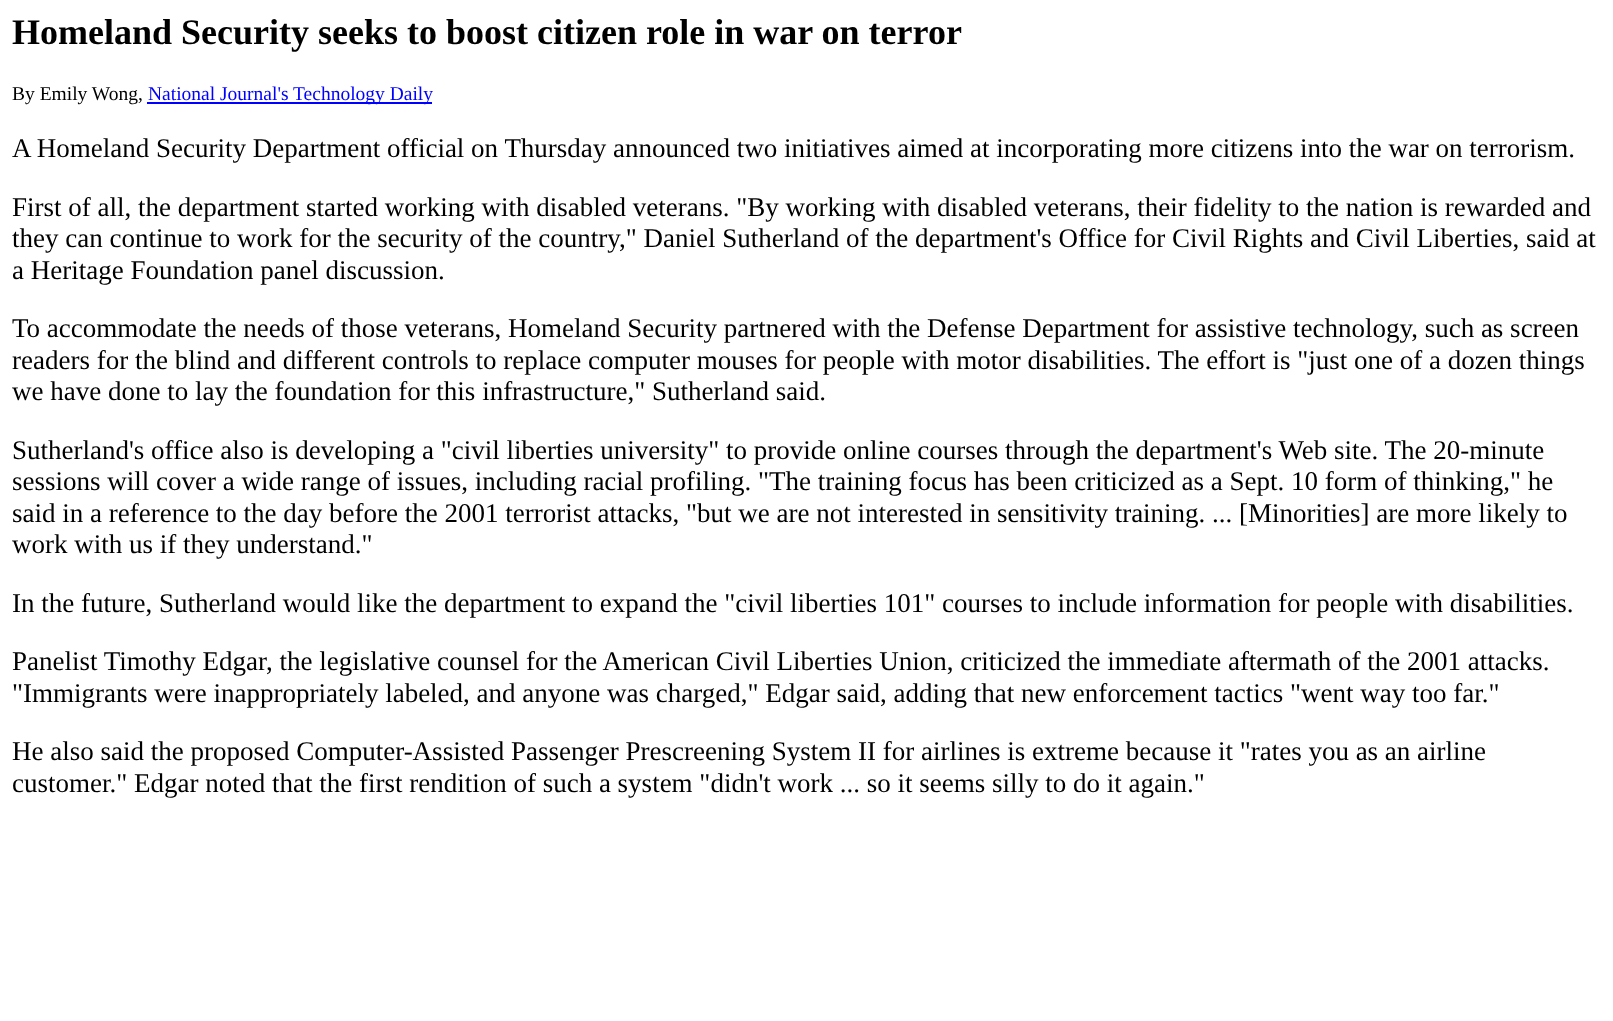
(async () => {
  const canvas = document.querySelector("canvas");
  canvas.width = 1613;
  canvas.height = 1021;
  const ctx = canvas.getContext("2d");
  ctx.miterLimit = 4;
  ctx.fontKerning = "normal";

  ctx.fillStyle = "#ffffff";
  ctx.fillRect(0, 0, 1613, 1021);
  ctx.fillStyle = "#0000ff";
  ctx.fillRect(147, 102, 285, 2);
  ctx.font = "bold 36px Liberation Serif";
  ctx.fillStyle = "#000000";
  ctx.fillText("Homeland Security seeks to boost citizen role in war on terror", 12, 44);
  ctx.font = "19.5px Liberation Serif";
  ctx.fillText("By Emily Wong,", 12, 100);
  ctx.fillStyle = "#0000ff";
  ctx.fillText("National Journal's Technology Daily", 148, 100);
  ctx.font = "27px Liberation Serif";
  ctx.fillStyle = "#000000";
  for (const [text, x, y] of [
    ["A Homeland Security Department official on Thursday announced two initiatives aimed at incorporating more citizens into the war on terrorism.", 12, 157],
    ["First of all, the department started working with disabled veterans. \"By working with disabled veterans, their fidelity to the nation is rewarded and", 12, 216],
    ["they can continue to work for the security of the country,\" Daniel Sutherland of the department's Office for Civil Rights and Civil Liberties, said at", 12, 247],
    ["a Heritage Foundation panel discussion.", 12, 279],
    ["To accommodate the needs of those veterans, Homeland Security partnered with the Defense Department for assistive technology, such as screen", 12, 337],
    ["readers for the blind and different controls to replace computer mouses for people with motor disabilities. The effort is \"just one of a dozen things", 12, 369],
    ["we have done to lay the foundation for this infrastructure,\" Sutherland said.", 12, 400],
    ["Sutherland's office also is developing a \"civil liberties university\" to provide online courses through the department's Web site. The 20-minute", 12, 459],
    ["sessions will cover a wide range of issues, including racial profiling. \"The training focus has been criticized as a Sept. 10 form of thinking,\" he", 12, 490],
    ["said in a reference to the day before the 2001 terrorist attacks, \"but we are not interested in sensitivity training. ... [Minorities] are more likely to", 12, 522],
    ["work with us if they understand.\"", 12, 553],
    ["In the future, Sutherland would like the department to expand the \"civil liberties 101\" courses to include information for people with disabilities.", 12, 612],
    ["Panelist Timothy Edgar, the legislative counsel for the American Civil Liberties Union, criticized the immediate aftermath of the 2001 attacks.", 12, 670],
    ["\"Immigrants were inappropriately labeled, and anyone was charged,\" Edgar said, adding that new enforcement tactics \"went way too far.\"", 12, 702],
    ["He also said the proposed Computer-Assisted Passenger Prescreening System II for airlines is extreme because it \"rates you as an airline", 12, 760],
    ["customer.\" Edgar noted that the first rendition of such a system \"didn't work ... so it seems silly to do it again.\"", 12, 792],
  ]) {
    ctx.fillText(text, x, y);
  }
})();
